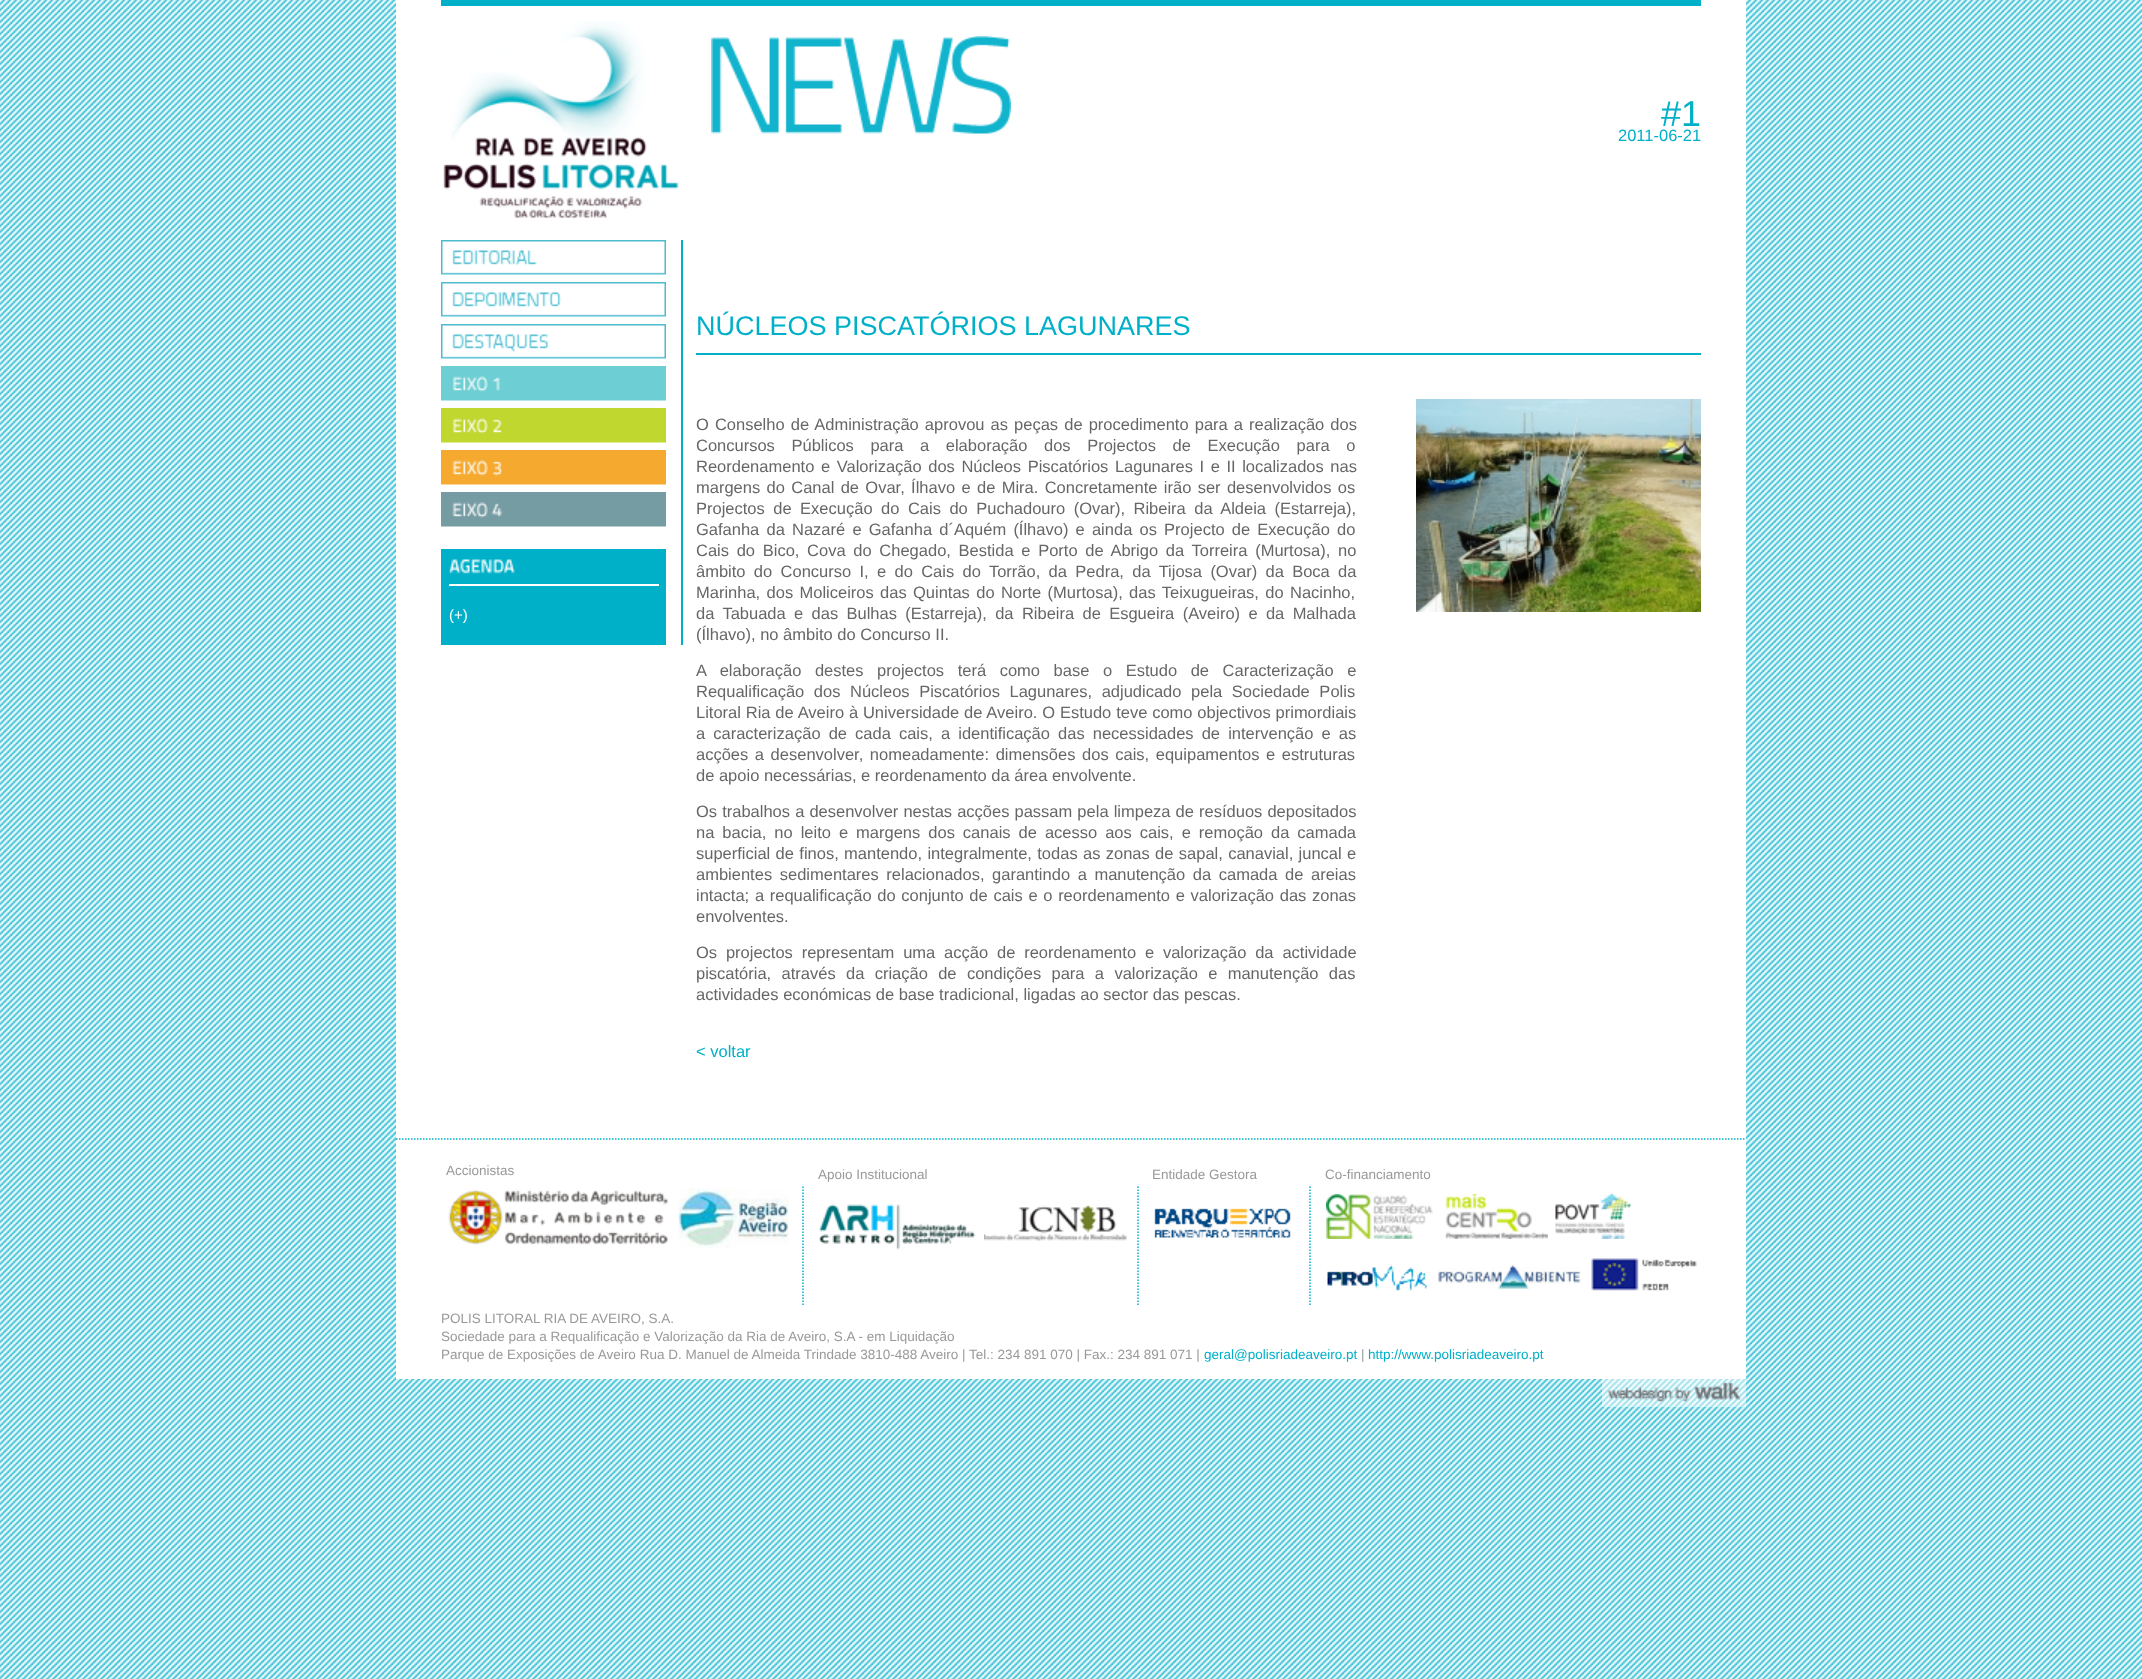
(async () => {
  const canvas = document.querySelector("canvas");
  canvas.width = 2142;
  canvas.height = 1679;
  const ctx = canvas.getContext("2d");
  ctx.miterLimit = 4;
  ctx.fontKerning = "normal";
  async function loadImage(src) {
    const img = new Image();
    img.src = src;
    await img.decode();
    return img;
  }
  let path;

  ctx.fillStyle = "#ffffff";
  ctx.fillRect(0, 0, 2142, 1679);
  ctx.drawImage(await loadImage("img/1.png"), 0, 0, 2142, 1679);
  ctx.fillRect(396, 0, 1350, 1379);
  ctx.fillStyle = "#00b0c8";
  ctx.fillRect(441, 0, 1260, 6);
  ctx.drawImage(await loadImage("img/2.png"), 443, 21, 236, 198);
  ctx.drawImage(await loadImage("img/3.png"), 711, 36, 300, 98);
  ctx.fillRect(681, 240, 2, 405);
  ctx.drawImage(await loadImage("img/4.png"), 441, 240, 225, 35);
  ctx.drawImage(await loadImage("img/5.png"), 441, 282, 225, 35);
  ctx.drawImage(await loadImage("img/6.png"), 441, 324, 225, 35);
  ctx.drawImage(await loadImage("img/7.png"), 441, 366, 225, 35);
  ctx.drawImage(await loadImage("img/8.png"), 441, 408, 225, 35);
  ctx.drawImage(await loadImage("img/9.png"), 441, 450, 225, 35);
  ctx.drawImage(await loadImage("img/10.png"), 441, 492, 225, 35);
  ctx.fillRect(441, 549, 225, 96);
  ctx.fillStyle = "#ffffff";
  ctx.fillRect(449, 584, 210, 2);
  ctx.drawImage(await loadImage("img/11.png"), 448, 559, 67, 15);
  ctx.fillStyle = "#00b0c8";
  ctx.fillRect(696, 353, 1005, 2);
  ctx.drawImage(await loadImage("img/12.png"), 1416, 399, 285, 213);
  path = new Path2D("M396 1139H1746");
  ctx.strokeStyle = "#00b0c8";
  ctx.lineWidth = 1.5;
  ctx.setLineDash([1.5, 1.5]);
  ctx.stroke(path);
  ctx.drawImage(await loadImage("img/13.png"), 448, 1189, 220, 56);
  ctx.drawImage(await loadImage("img/14.png"), 678, 1188, 111, 60);
  path = new Path2D("M803 1186.5V1306.5");
  ctx.stroke(path);
  ctx.drawImage(await loadImage("img/15.png"), 819, 1204, 157, 46);
  ctx.drawImage(await loadImage("img/16.png"), 984, 1205, 143, 36);
  path = new Path2D("M1138 1186.5V1306.5");
  ctx.stroke(path);
  ctx.drawImage(await loadImage("img/17.png"), 1154, 1208, 137, 30);
  path = new Path2D("M1310 1186.5V1306.5");
  ctx.stroke(path);
  ctx.drawImage(await loadImage("img/18.png"), 1326, 1194, 107, 45);
  ctx.drawImage(await loadImage("img/19.png"), 1445, 1194, 103, 45);
  ctx.drawImage(await loadImage("img/20.png"), 1555, 1194, 76, 45);
  ctx.drawImage(await loadImage("img/21.png"), 1327, 1265, 102, 26);
  ctx.drawImage(await loadImage("img/22.png"), 1438, 1264, 144, 26);
  ctx.drawImage(await loadImage("img/23.png"), 1591, 1258, 106, 33);
  ctx.drawImage(await loadImage("img/24.png"), 1602, 1379, 144, 28);
  ctx.font = "36px Liberation Sans";
  ctx.fillText("#1", 1661, 126);
  ctx.font = "16.5px Liberation Sans";
  ctx.fillText("2011-06-21", 1618, 141);
  ctx.font = "15px Liberation Sans";
  ctx.fillStyle = "#ffffff";
  ctx.fillText("(+)", 449, 620);
  ctx.font = "27px Liberation Sans";
  ctx.fillStyle = "#00b0c8";
  ctx.fillText("NÚCLEOS PISCATÓRIOS LAGUNARES", 696, 335);
  ctx.wordSpacing = "1.5px";
  ctx.font = "16.5px Liberation Sans";
  ctx.fillStyle = "#666666";
  ctx.fillText("O Conselho de Administração aprovou as peças de procedimento para a realização dos", 696, 430);
  ctx.wordSpacing = "12px";
  ctx.fillText("Concursos Públicos para a elaboração dos Projectos de Execução para o", 696, 451);
  ctx.wordSpacing = "2px";
  ctx.fillText("Reordenamento e Valorização dos Núcleos Piscatórios Lagunares I e II localizados nas", 696, 472);
  ctx.wordSpacing = "1.75px";
  ctx.fillText("margens do Canal de Ovar, Ílhavo e de Mira. Concretamente irão ser desenvolvidos os", 696, 493);
  ctx.wordSpacing = "3.9px";
  ctx.fillText("Projectos de Execução do Cais do Puchadouro (Ovar), Ribeira da Aldeia (Estarreja),", 696, 514);
  ctx.wordSpacing = "2.6px";
  ctx.fillText("Gafanha da Nazaré e Gafanha d´Aquém (Ílhavo) e ainda os Projecto de Execução do", 696, 535);
  ctx.wordSpacing = "3.1px";
  ctx.fillText("Cais do Bico, Cova do Chegado, Bestida e Porto de Abrigo da Torreira (Murtosa), no", 696, 556);
  ctx.wordSpacing = "3.75px";
  ctx.fillText("âmbito do Concurso I, e do Cais do Torrão, da Pedra, da Tijosa (Ovar) da Boca da", 696, 577);
  ctx.wordSpacing = "1.75px";
  ctx.fillText("Marinha, dos Moliceiros das Quintas do Norte (Murtosa), das Teixugueiras, do Nacinho,", 696, 598);
  ctx.wordSpacing = "3.75px";
  ctx.fillText("da Tabuada e das Bulhas (Estarreja), da Ribeira de Esgueira (Aveiro) e da Malhada", 696, 619);
  ctx.wordSpacing = "0px";
  ctx.fillText("(Ílhavo), no âmbito do Concurso II.", 696, 640);
  ctx.wordSpacing = "9px";
  ctx.fillText("A elaboração destes projectos terá como base o Estudo de Caracterização e", 696, 676);
  ctx.wordSpacing = "5px";
  ctx.fillText("Requalificação dos Núcleos Piscatórios Lagunares, adjudicado pela Sociedade Polis", 696, 697);
  ctx.wordSpacing = "0.25px";
  ctx.fillText("Litoral Ria de Aveiro à Universidade de Aveiro. O Estudo teve como objectivos primordiais", 696, 718);
  ctx.wordSpacing = "3.5px";
  ctx.fillText("a caracterização de cada cais, a identificação das necessidades de intervenção e as", 696, 739);
  ctx.wordSpacing = "2px";
  ctx.fillText("acções a desenvolver, nomeadamente: dimensões dos cais, equipamentos e estruturas", 696, 760);
  ctx.wordSpacing = "0px";
  ctx.fillText("de apoio necessárias, e reordenamento da área envolvente.", 696, 781);
  ctx.wordSpacing = "0.5px";
  ctx.fillText("Os trabalhos a desenvolver nestas acções passam pela limpeza de resíduos depositados", 696, 817);
  ctx.wordSpacing = "3.4px";
  ctx.fillText("na bacia, no leito e margens dos canais de acesso aos cais, e remoção da camada", 696, 838);
  ctx.wordSpacing = "0.75px";
  ctx.fillText("superficial de finos, mantendo, integralmente, todas as zonas de sapal, canavial, juncal e", 696, 859);
  ctx.wordSpacing = "3px";
  ctx.fillText("ambientes sedimentares relacionados, garantindo a manutenção da camada de areias", 696, 880);
  ctx.wordSpacing = "1.1px";
  ctx.fillText("intacta; a requalificação do conjunto de cais e o reordenamento e valorização das zonas", 696, 901);
  ctx.wordSpacing = "0px";
  ctx.fillText("envolventes.", 696, 922);
  ctx.wordSpacing = "4.25px";
  ctx.fillText("Os projectos representam uma acção de reordenamento e valorização da actividade", 696, 958);
  ctx.wordSpacing = "5.75px";
  ctx.fillText("piscatória, através da criação de condições para a valorização e manutenção das", 696, 979);
  ctx.wordSpacing = "0px";
  ctx.fillText("actividades económicas de base tradicional, ligadas ao sector das pescas.", 696, 1000);
  ctx.fillStyle = "#00b0c8";
  ctx.fillText("< voltar", 696, 1057);
  ctx.font = "13.5px Liberation Sans";
  ctx.fillStyle = "#999999";
  for (const [text, x, y] of [
    ["Accionistas", 446, 1175],
    ["Apoio Institucional", 818, 1179],
    ["Entidade Gestora", 1152, 1179],
    ["Co-financiamento", 1325, 1179],
    ["POLIS LITORAL RIA DE AVEIRO, S.A.", 441, 1323],
    ["Sociedade para a Requalificação e Valorização da Ria de Aveiro, S.A - em Liquidação", 441, 1341],
    ["Parque de Exposições de Aveiro Rua D. Manuel de Almeida Trindade 3810-488 Aveiro | Tel.: 234 891 070 | Fax.: 234 891 071 |", 441, 1359],
  ]) {
    ctx.fillText(text, x, y);
  }
  ctx.fillStyle = "#00b0c8";
  ctx.fillText("geral@polisriadeaveiro.pt", 1204, 1359);
  ctx.fillStyle = "#999999";
  ctx.fillText("|", 1361, 1359);
  ctx.fillStyle = "#00b0c8";
  ctx.fillText("http://www.polisriadeaveiro.pt", 1368, 1359);
})();
